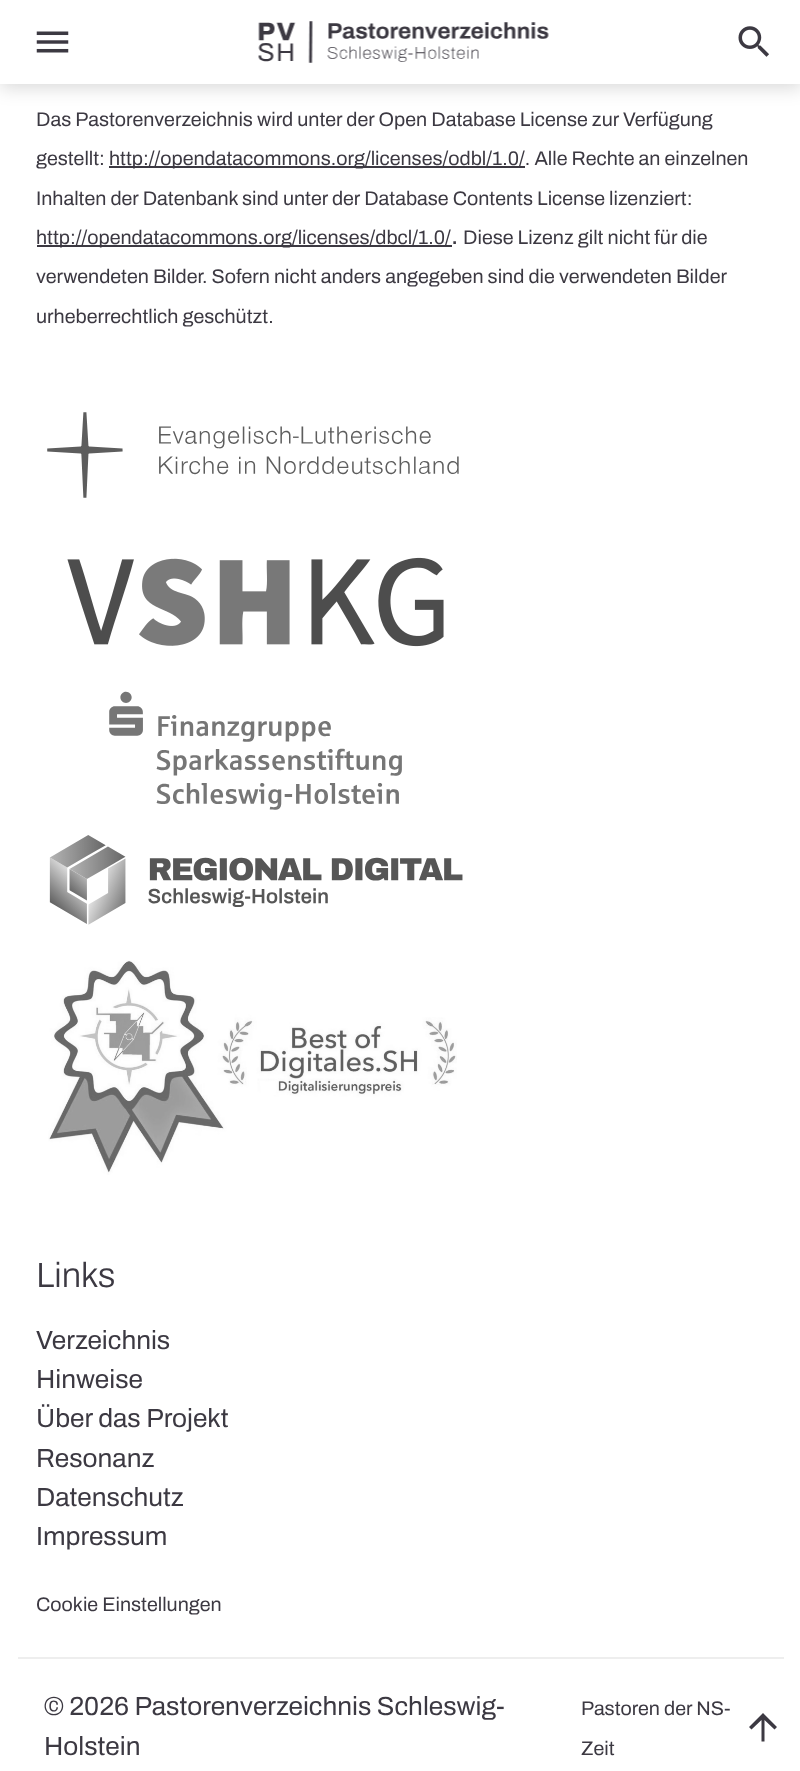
(async () => {
  const canvas = document.querySelector("canvas");
  canvas.width = 800;
  canvas.height = 1771;
  const ctx = canvas.getContext("2d");
  ctx.miterLimit = 4;
  ctx.fontKerning = "normal";
  async function loadImage(src) {
    const img = new Image();
    img.src = src;
    await img.decode();
    return img;
  }
  let path;

  ctx.fillStyle = "#ffffff";
  ctx.fillRect(0, 0, 800, 1771);
  ctx.fillStyle = "rgba(0, 0, 0, 0.15)";
  ctx.filter = "blur(9px)";
  ctx.beginPath();
  ctx.rect(0, 4, 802, 84);
  ctx.fill();
  ctx.filter = "none";
  ctx.fillStyle = "#ffffff";
  ctx.fillRect(0, 0, 800, 84);
  ctx.drawImage(await loadImage("img/1.png"), 36, 31, 33, 22);
  ctx.drawImage(await loadImage("img/2.png"), 258, 21, 291, 42);
  ctx.drawImage(await loadImage("img/3.png"), 738, 26, 31, 31);
  ctx.fillStyle = "#3c3942";
  ctx.fillRect(109, 166, 416, 2);
  ctx.fillRect(37, 245, 415, 2);
  ctx.drawImage(await loadImage("img/4.png"), 47, 412, 412, 86);
  ctx.drawImage(await loadImage("img/5.png"), 67, 557, 377, 90);
  ctx.drawImage(await loadImage("img/6.png"), 109, 691, 293, 119);
  ctx.drawImage(await loadImage("img/7.png"), 49, 835, 414, 90);
  ctx.drawImage(await loadImage("img/8.png"), 48, 960, 409, 215);
  ctx.fillStyle = "#eeeeee";
  ctx.fillRect(18, 1657, 766, 2);
  ctx.fillStyle = "#3c3942";
  path = new Path2D("M749 1727L763 1713L777 1727L774.5 1729.5L764.5 1720V1741.5H761.5V1720L751.5 1729.5Z");
  ctx.fill(path);
  ctx.font = "600 19.7px Archivo";
  for (const [text, x, y] of [
    ["Das Pastorenverzeichnis wird unter der Open Database License zur Verfügung", 36, 126],
    ["gestellt:", 36, 165],
    ["http://opendatacommons.org/licenses/odbl/1.0/. Alle Rechte an einzelnen", 109, 165],
    ["Inhalten der Datenbank sind unter der Database Contents License lizenziert:", 36, 205],
    ["http://opendatacommons.org/licenses/dbcl/1.0/", 36, 244],
  ]) {
    ctx.fillText(text, x, y);
  }
  ctx.font = "600 26.25px Archivo";
  ctx.fillText(".", 451, 244);
  ctx.font = "600 19.7px Archivo";
  for (const [text, x, y] of [
    ["Diese Lizenz gilt nicht für die", 463, 244],
    ["verwendeten Bilder. Sofern nicht anders angegeben sind die verwendeten Bilder", 36, 283],
    ["urheberrechtlich geschützt.", 36, 323],
  ]) {
    ctx.fillText(text, x, y);
  }
  ctx.font = "600 35px 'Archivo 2'";
  ctx.fillText("Links", 36, 1287);
  ctx.font = "600 26.25px Archivo";
  for (const [text, x, y] of [
    ["Verzeichnis", 36, 1349],
    ["Hinweise", 36, 1388],
    ["Über das Projekt", 36, 1427],
    ["Resonanz", 36, 1467],
    ["Datenschutz", 36, 1506],
    ["Impressum", 36, 1545],
  ]) {
    ctx.fillText(text, x, y);
  }
  ctx.font = "600 19.7px Archivo";
  ctx.fillText("Cookie Einstellungen", 36, 1611);
  ctx.font = "600 26.25px Archivo";
  ctx.fillText("© 2026 Pastorenverzeichnis Schleswig-", 44, 1715);
  ctx.fillText("Holstein", 44, 1755);
  ctx.font = "600 19.7px Archivo";
  ctx.fillText("Pastoren der NS-", 581, 1715);
  ctx.fillText("Zeit", 581, 1755);
})();
